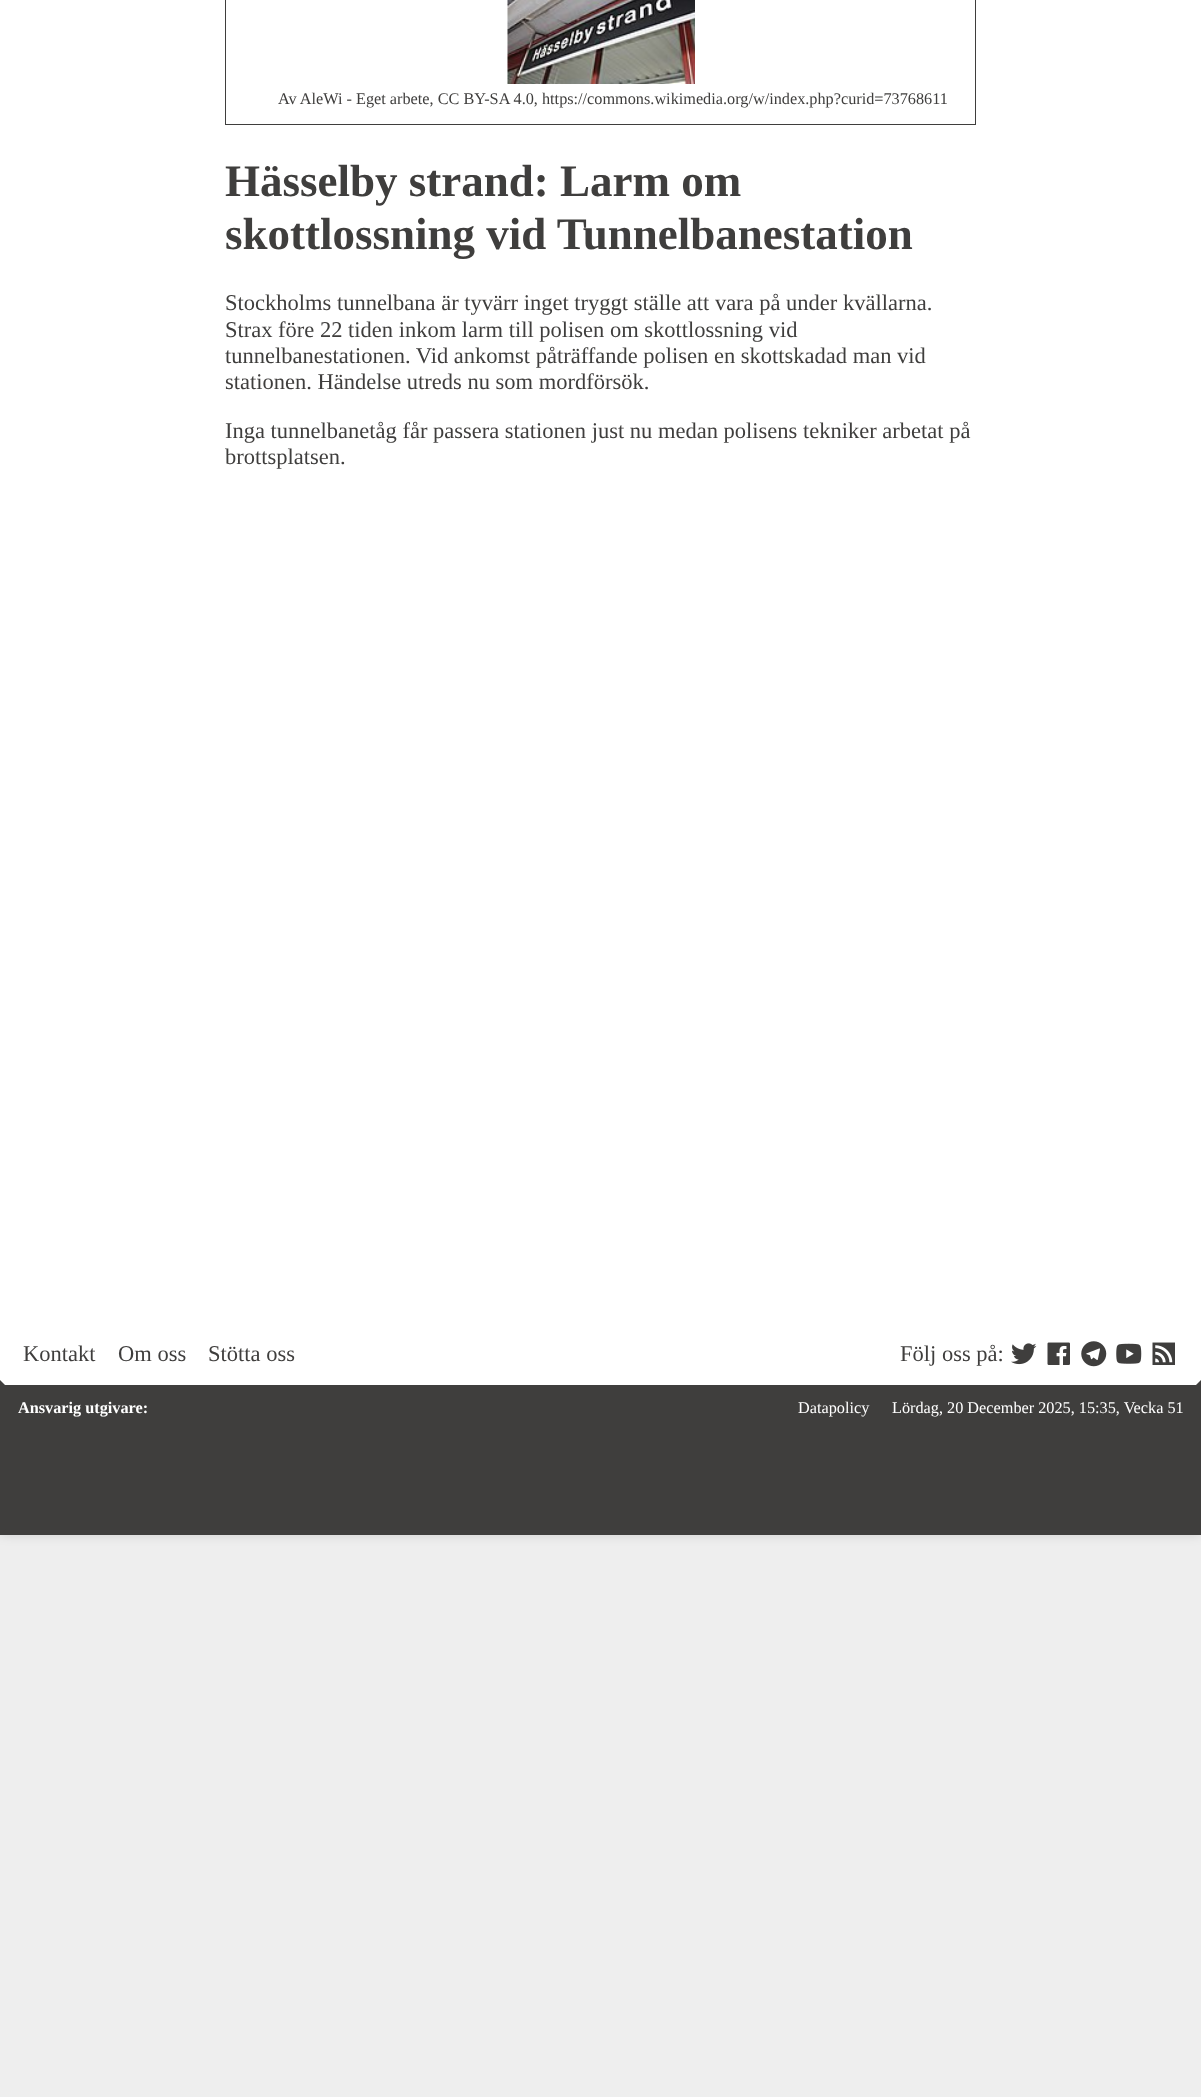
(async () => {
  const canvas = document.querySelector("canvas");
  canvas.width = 1201;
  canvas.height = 2097;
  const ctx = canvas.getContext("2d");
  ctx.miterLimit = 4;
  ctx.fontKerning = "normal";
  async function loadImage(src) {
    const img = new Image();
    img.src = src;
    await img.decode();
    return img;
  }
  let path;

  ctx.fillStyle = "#eeeeee";
  ctx.fillRect(0, 0, 1201, 2097);
  ctx.fillStyle = "rgba(0, 0, 0, 0.13)";
  ctx.filter = "blur(5.5px)";
  ctx.beginPath();
  ctx.rect(0, -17, 1201, 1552);
  ctx.fill();
  ctx.filter = "none";
  ctx.fillStyle = "#ffffff";
  ctx.fillRect(0, 0, 1201, 1385);
  ctx.strokeStyle = "#3f3e3d";
  ctx.strokeRect(225.5, -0.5, 750, 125);
  ctx.drawImage(await loadImage("img/1.png"), 507, 0, 188, 84);
  ctx.drawImage(await loadImage("img/2.png"), 1011, 1343, 26, 22);
  ctx.drawImage(await loadImage("img/3.png"), 1047, 1342, 23, 23);
  ctx.drawImage(await loadImage("img/4.png"), 1081, 1341, 26, 26);
  ctx.drawImage(await loadImage("img/5.png"), 1116, 1343, 26, 21);
  ctx.drawImage(await loadImage("img/6.png"), 1152, 1342, 23, 23);
  ctx.fillStyle = "#3f3e3d";
  path = new Path2D("M1201 1380V1535L1195 1529V1386Z");
  ctx.fill(path);
  ctx.fillRect(0, 1529, 1201, 6);
  path = new Path2D("M0 1535V1380L6 1386V1529Z");
  ctx.fill(path);
  ctx.fillRect(5, 1385, 1191, 144);
  ctx.font = "16.25px Liberation Serif";
  ctx.fillText("Av AleWi - Eget arbete, CC BY-SA 4.0, https://commons.wikimedia.org/w/index.php?curid=73768611", 278, 104);
  ctx.font = "bold 45px Liberation Serif";
  ctx.fillText("Hässelby strand: Larm om", 225, 196);
  ctx.fillText("skottlossning vid Tunnelbanestation", 225, 249);
  ctx.font = "22.5px Liberation Serif";
  for (const [text, x, y] of [
    ["Stockholms tunnelbana är tyvärr inget tryggt ställe att vara på under kvällarna.", 225, 310],
    ["Strax före 22 tiden inkom larm till polisen om skottlossning vid", 225, 337],
    ["tunnelbanestationen. Vid ankomst påträffande polisen en skottskadad man vid", 225, 363],
    ["stationen. Händelse utreds nu som mordförsök.", 225, 389],
    ["Inga tunnelbanetåg får passera stationen just nu medan polisens tekniker arbetat på", 225, 438],
    ["brottsplatsen.", 225, 464],
    ["Kontakt", 23, 1361],
    ["Om oss", 118, 1361],
    ["Stötta oss", 208, 1361],
    ["Följ oss på:", 900, 1361],
  ]) {
    ctx.fillText(text, x, y);
  }
  ctx.font = "bold 16.25px Liberation Serif";
  ctx.fillStyle = "#ffffff";
  ctx.fillText("Ansvarig utgivare:", 18, 1413);
  ctx.font = "16.25px Liberation Serif";
  ctx.fillText("Datapolicy", 798, 1413);
  ctx.fillText("Lördag, 20 December 2025, 15:35, Vecka 51", 892, 1413);
})();
